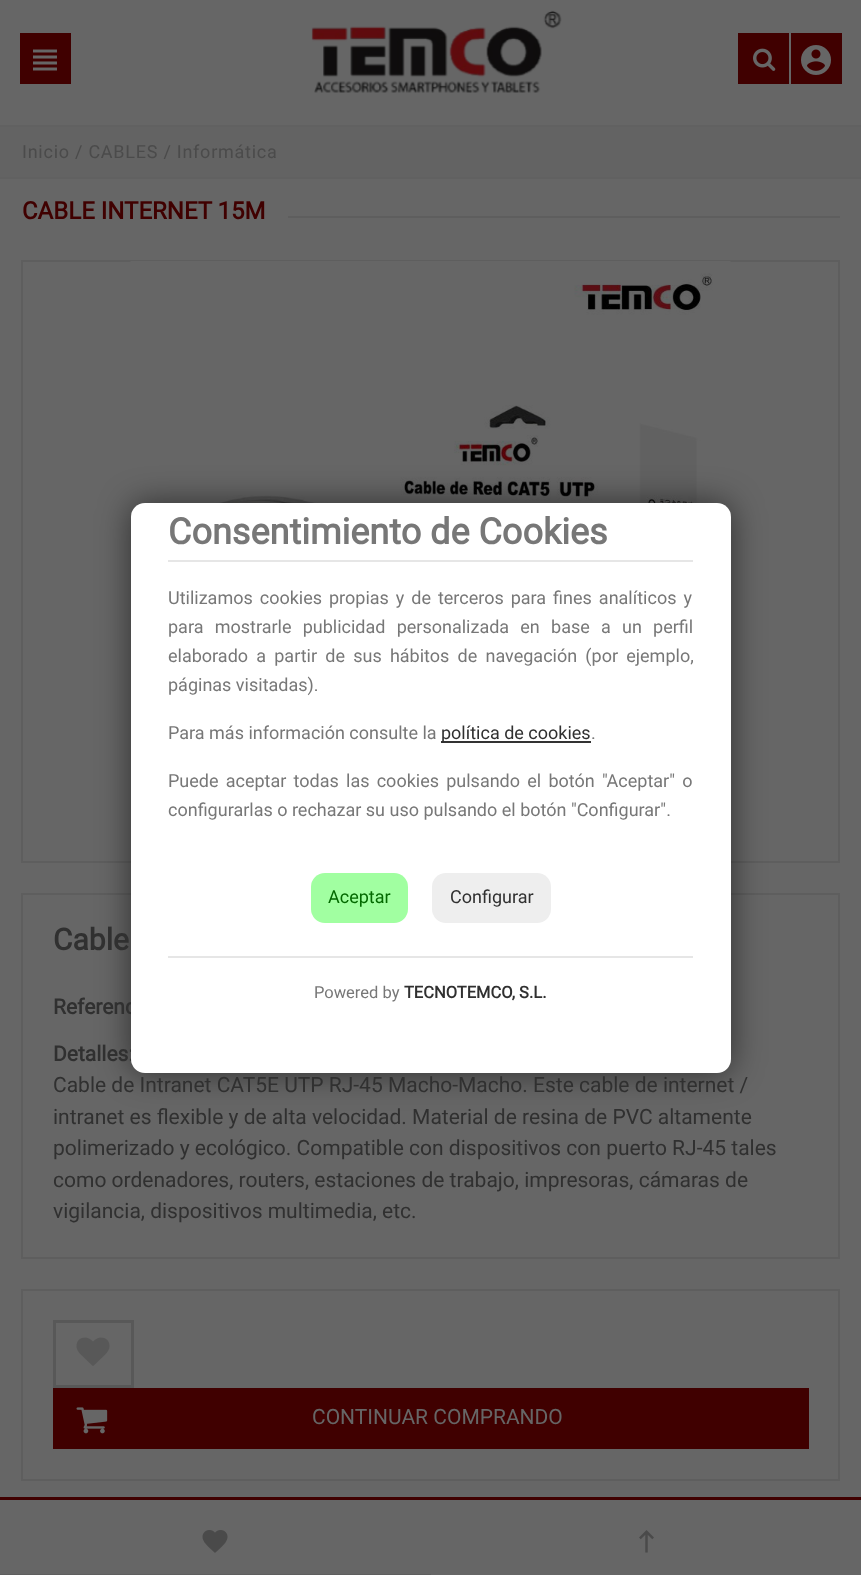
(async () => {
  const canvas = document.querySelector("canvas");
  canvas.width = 861;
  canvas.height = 1575;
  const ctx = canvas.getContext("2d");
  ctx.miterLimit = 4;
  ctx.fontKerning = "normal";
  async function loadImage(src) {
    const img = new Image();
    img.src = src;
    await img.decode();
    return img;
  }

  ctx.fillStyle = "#666666";
  ctx.fillRect(0, 0, 861, 1575);
  ctx.fillStyle = "#400000";
  ctx.fillRect(20, 33, 51, 51);
  ctx.drawImage(await loadImage("img/1.png"), 33, 49, 24, 22);
  ctx.drawImage(await loadImage("img/2.png"), 311, 10, 251, 83);
  ctx.fillRect(738, 33, 51, 51);
  ctx.drawImage(await loadImage("img/3.png"), 753, 48, 23, 23);
  ctx.fillRect(791, 33, 51, 51);
  ctx.drawImage(await loadImage("img/4.png"), 801, 45, 30, 30);
  for (const [x, y, w, h, color] of [
    [0, 127, 861, 50, "#636363"],
    [0, 125, 861, 2, "#616161"],
    [0, 177, 861, 2, "#616161"],
    [288, 216, 552, 2, "#5e5e5e"],
  ]) {
    ctx.fillStyle = color;
    ctx.fillRect(x, y, w, h);
  }
  ctx.strokeStyle = "#5e5e5e";
  ctx.lineWidth = 2;
  ctx.strokeRect(22, 261, 817, 601);
  ctx.drawImage(await loadImage("img/5.png"), 130, 261, 601, 550);
  ctx.strokeRect(22, 894, 817, 364);
  ctx.strokeRect(22, 1290, 817, 190);
  ctx.strokeStyle = "#585858";
  ctx.lineWidth = 3;
  ctx.strokeRect(54.5, 1321.5, 78, 65);
  ctx.drawImage(await loadImage("img/6.png"), 76, 1337, 34, 29);
  ctx.fillStyle = "#400000";
  ctx.fillRect(53, 1388, 756, 61);
  ctx.drawImage(await loadImage("img/7.png"), 76, 1407, 32, 27);
  ctx.fillRect(0, 1497, 861, 3);
  ctx.fillStyle = "#5e5e5e";
  ctx.fillRect(0, 1574, 431, 1);
  ctx.drawImage(await loadImage("img/8.png"), 202, 1530, 26, 23);
  ctx.drawImage(await loadImage("img/9.png"), 639, 1530, 15, 23);
  ctx.fillStyle = "rgba(0, 0, 0, 0.54)";
  ctx.filter = "blur(16.5px)";
  ctx.beginPath();
  ctx.roundRect(131, 503, 600, 570, 14);
  ctx.fill();
  ctx.filter = "none";
  ctx.letterSpacing = "0.75px";
  ctx.font = "18px Roboto";
  ctx.fillStyle = "#4b4b4b";
  ctx.fillText("Inicio / CABLES / Informática", 22, 158);
  ctx.letterSpacing = "0px";
  ctx.font = "bold 24px Roboto";
  ctx.fillStyle = "#400000";
  ctx.fillText("CABLE INTERNET 15M", 22, 219);
  ctx.font = "bold 30px Roboto";
  ctx.fillStyle = "#303030";
  ctx.fillText("Cable", 53, 950);
  ctx.font = "bold 21px Roboto";
  ctx.fillText("Referenc", 53, 1014);
  ctx.fillText("Detalles:", 53, 1061);
  ctx.font = "21px Roboto";
  for (const [text, x, y] of [
    ["Cable de Intranet CAT5E UTP RJ-45 Macho-Macho. Este cable de internet /", 53, 1092],
    ["intranet es flexible y de alta velocidad. Material de resina de PVC altamente", 53, 1124],
    ["polimerizado y ecológico. Compatible con dispositivos con puerto RJ-45 tales", 53, 1155],
    ["como ordenadores, routers, estaciones de trabajo, impresoras, cámaras de", 53, 1187],
    ["vigilancia, dispositivos multimedia, etc.", 53, 1218],
  ]) {
    ctx.fillText(text, x, y);
  }
  ctx.fillStyle = "#666666";
  ctx.fillText("CONTINUAR COMPRANDO", 312, 1424);
  ctx.fillStyle = "#ffffff";
  ctx.beginPath();
  ctx.roundRect(131, 503, 600, 570, 14);
  ctx.fill();
  ctx.fillStyle = "#e6e6e6";
  ctx.fillRect(168, 560, 525, 2);
  ctx.font = "bold 36px Roboto";
  ctx.fillStyle = "#777777";
  ctx.fillText("Consentimiento de Cookies", 168, 544);
  ctx.wordSpacing = "2.5px";
  ctx.font = "18px Roboto";
  ctx.fillText("Utilizamos cookies propias y de terceros para fines analíticos y", 168, 604);
  ctx.wordSpacing = "6.75px";
  ctx.fillText("para mostrarle publicidad personalizada en base a un perfil", 168, 633);
  ctx.wordSpacing = "3.75px";
  ctx.fillText("elaborado a partir de sus hábitos de navegación (por ejemplo,", 168, 662);
  ctx.wordSpacing = "0px";
  ctx.fillText("páginas visitadas).", 168, 691);
  ctx.fillText("Para más información consulte la", 168, 739);
  ctx.fillStyle = "#333333";
  ctx.fillRect(441, 741, 150, 2);
  ctx.fillStyle = "#303030";
  ctx.fillText("política de cookies", 441, 739);
  ctx.fillStyle = "#777777";
  ctx.fillText(".", 591, 739);
  ctx.wordSpacing = "2.75px";
  ctx.fillText("Puede aceptar todas las cookies pulsando el botón \"Aceptar\" o", 168, 787);
  ctx.wordSpacing = "0px";
  ctx.fillText("configurarlas o rechazar su uso pulsando el botón \"Configurar\".", 168, 816);
  ctx.fillStyle = "#a1ffa1";
  ctx.beginPath();
  ctx.roundRect(311, 873, 97, 50, 14);
  ctx.fill();
  ctx.fillStyle = "#036900";
  ctx.fillText("Aceptar", 328, 903);
  ctx.fillStyle = "#eeeeee";
  ctx.beginPath();
  ctx.roundRect(432, 873, 119, 50, 14);
  ctx.fill();
  ctx.fillStyle = "#303030";
  ctx.fillText("Configurar", 450, 903);
  ctx.fillStyle = "#e6e6e6";
  ctx.fillRect(168, 956, 525, 2);
  ctx.font = "16.5px Roboto";
  ctx.fillStyle = "#777777";
  ctx.fillText("Powered by", 314, 998);
  ctx.font = "bold 16.5px Roboto";
  ctx.fillStyle = "#303030";
  ctx.fillText("TECNOTEMCO, S.L.", 404, 998);
})();
